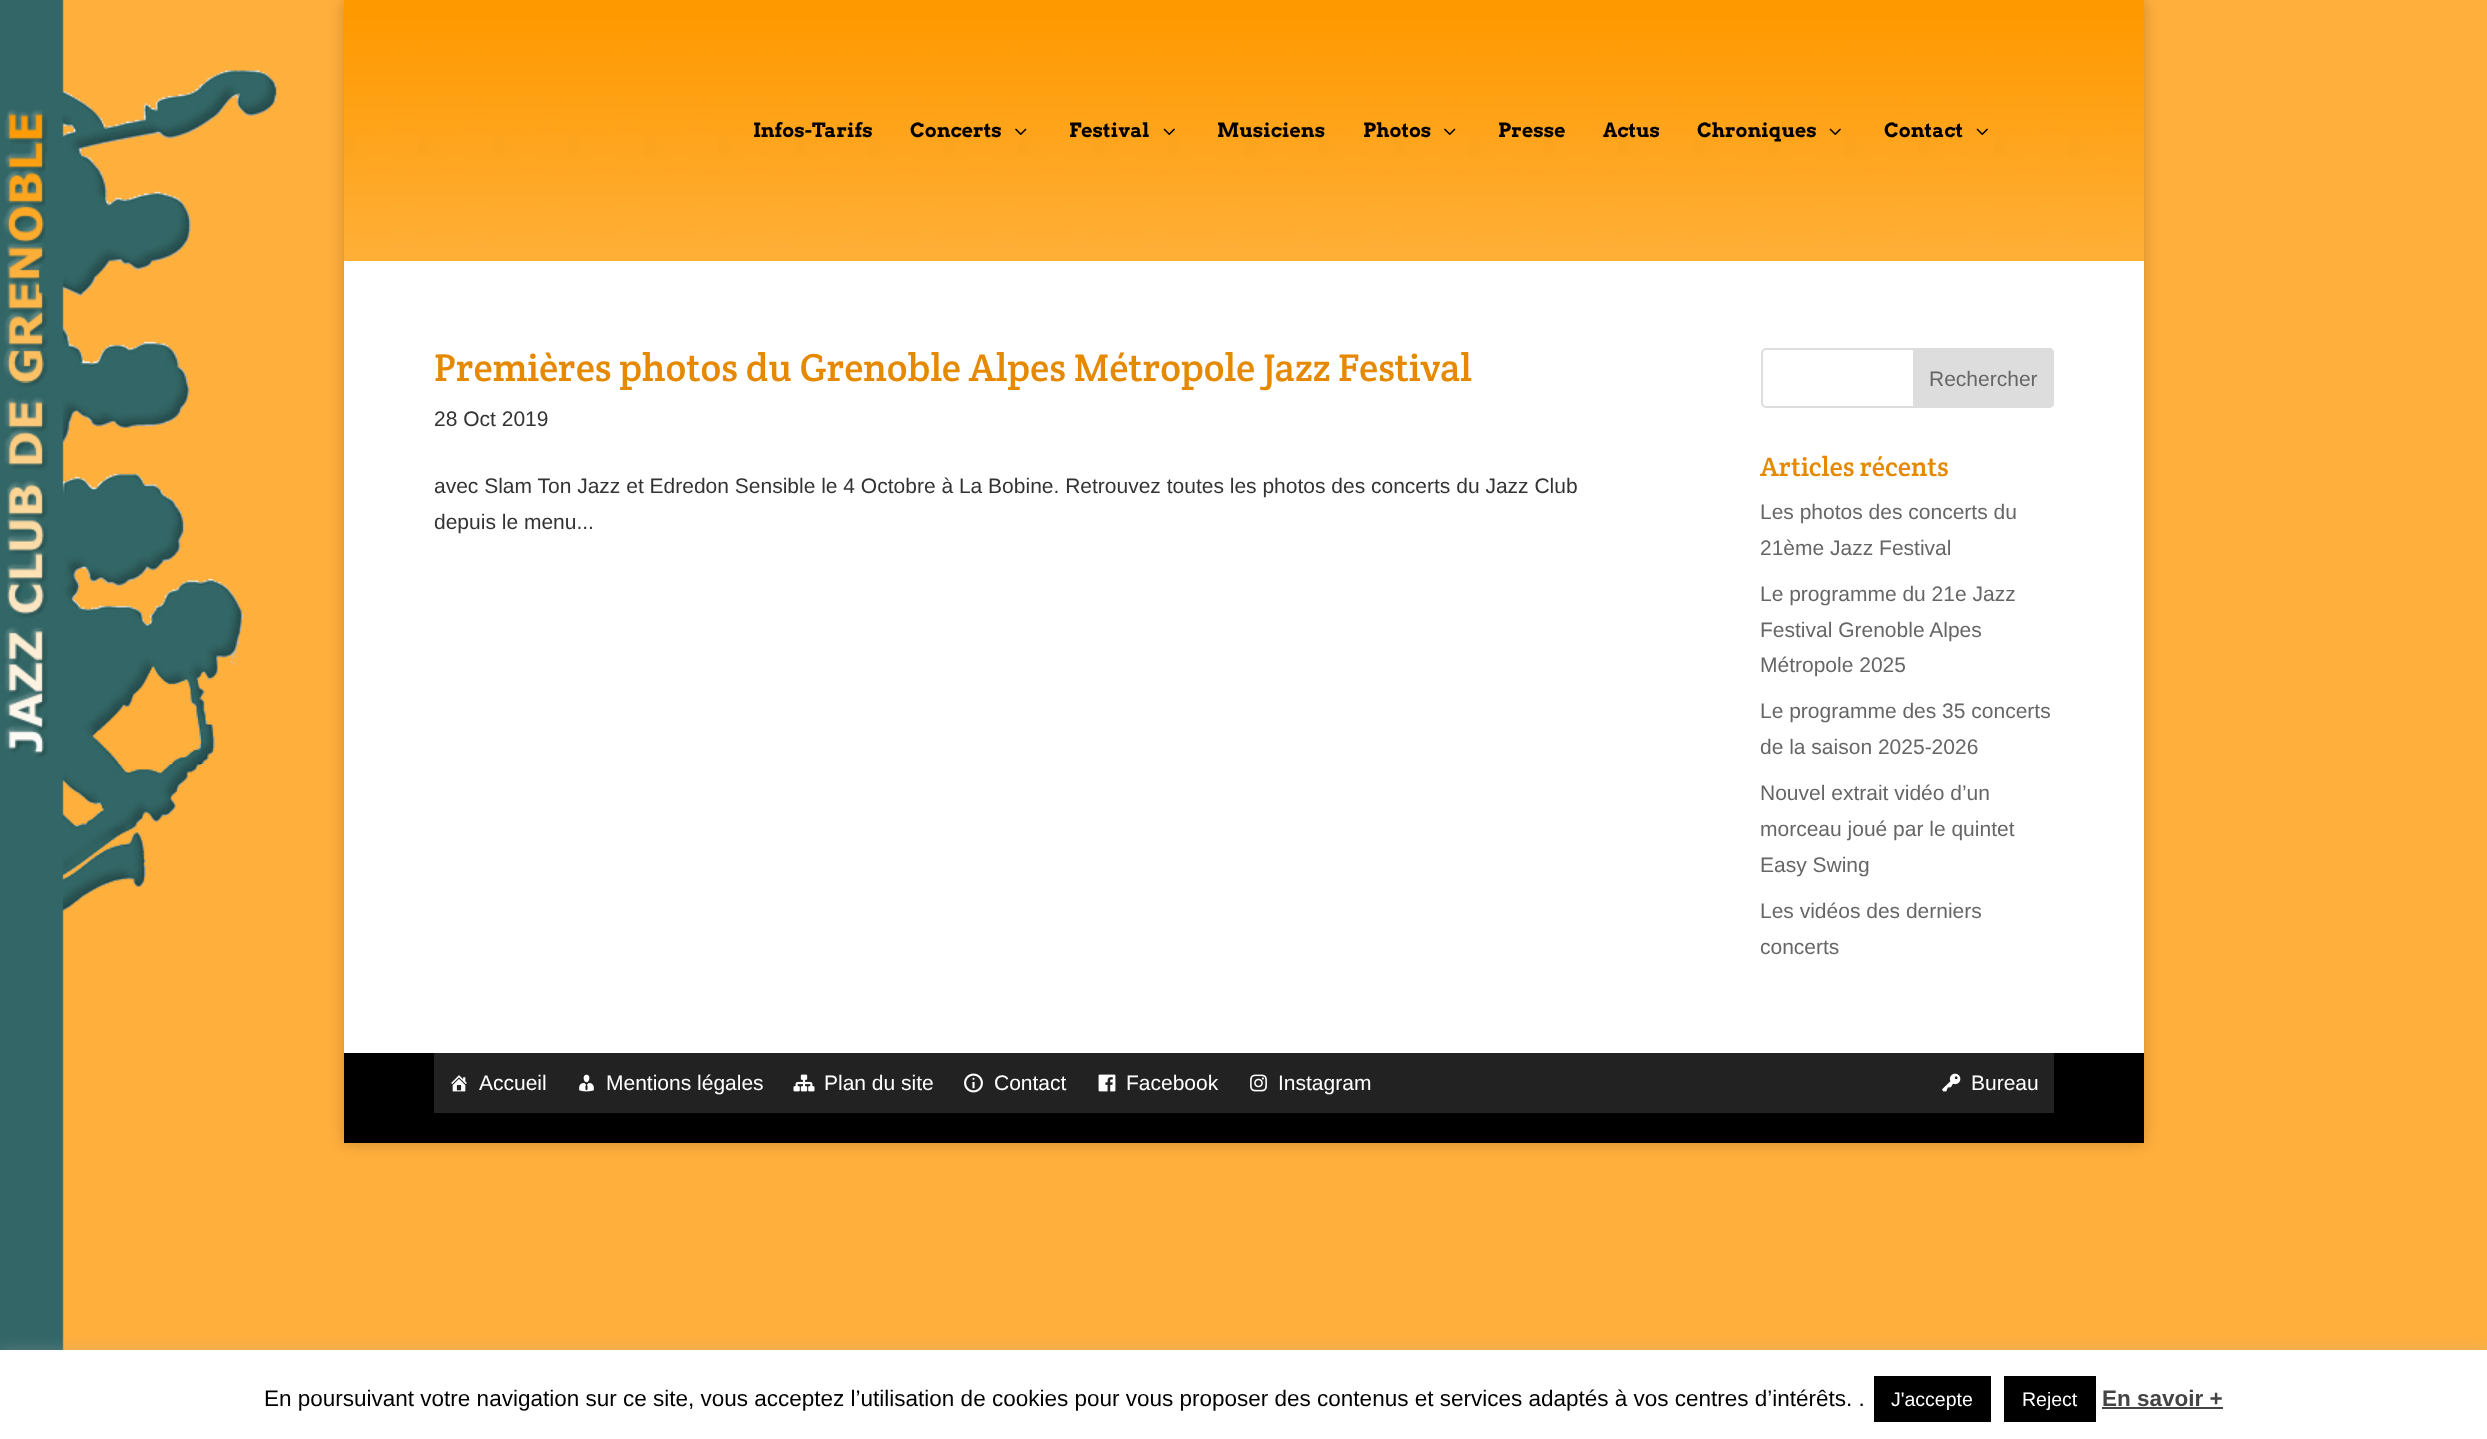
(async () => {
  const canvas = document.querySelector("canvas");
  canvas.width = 2487;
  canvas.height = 1439;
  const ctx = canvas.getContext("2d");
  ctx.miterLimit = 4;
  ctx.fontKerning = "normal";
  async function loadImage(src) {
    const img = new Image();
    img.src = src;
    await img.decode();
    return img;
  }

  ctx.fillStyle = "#ffaf3c";
  ctx.fillRect(0, 0, 2487, 1439);
  ctx.drawImage(await loadImage("img/1.png"), 0, 0, 277, 1350);
  ctx.fillStyle = "rgba(0, 0, 0, 0.2)";
  ctx.filter = "blur(7.5px)";
  ctx.beginPath();
  ctx.rect(344, 0, 1800, 1143);
  ctx.fill();
  ctx.filter = "none";
  ctx.drawImage(await loadImage("img/2.png"), 344, 0, 1800, 261);
  ctx.drawImage(await loadImage("img/3.png"), 1015, 128, 12, 7);
  ctx.drawImage(await loadImage("img/4.png"), 1163, 128, 12, 7);
  ctx.drawImage(await loadImage("img/5.png"), 1444, 128, 12, 7);
  ctx.drawImage(await loadImage("img/6.png"), 1829, 128, 12, 7);
  ctx.drawImage(await loadImage("img/7.png"), 1976, 128, 12, 7);
  ctx.fillStyle = "#ffffff";
  ctx.fillRect(344, 261, 1800, 792);
  ctx.beginPath();
  ctx.roundRect(1762, 349, 291, 58, 4);
  ctx.strokeStyle = "#dddddd";
  ctx.lineWidth = 2;
  ctx.stroke();
  ctx.fillStyle = "#dddddd";
  ctx.beginPath();
  ctx.roundRect(1914, 349, 139, 58, [0, 4, 4, 0]);
  ctx.fill();
  ctx.stroke();
  ctx.fillStyle = "#000000";
  ctx.fillRect(344, 1053, 1800, 90);
  ctx.fillStyle = "#222222";
  ctx.fillRect(434, 1053, 1620, 60);
  ctx.drawImage(await loadImage("img/8.png"), 451, 1075, 16, 17);
  ctx.drawImage(await loadImage("img/9.png"), 579, 1074, 15, 18);
  ctx.drawImage(await loadImage("img/10.png"), 793, 1074, 22, 18);
  ctx.drawImage(await loadImage("img/11.png"), 964, 1073, 19, 20);
  ctx.drawImage(await loadImage("img/12.png"), 1098, 1074, 18, 18);
  ctx.drawImage(await loadImage("img/13.png"), 1250, 1074, 17, 18);
  ctx.drawImage(await loadImage("img/14.png"), 1942, 1073, 19, 19);
  ctx.fillStyle = "rgba(172, 171, 171, 0.3)";
  ctx.filter = "blur(7.5px)";
  ctx.beginPath();
  ctx.rect(0, 1349, 2487, 90);
  ctx.fill();
  ctx.filter = "none";
  for (const [x, y, w, h, color] of [
    [0, 1350, 2487, 89, "#ffffff"],
    [1874, 1376, 117, 46, "#000000"],
    [2004, 1376, 92, 46, "#000000"],
    [2102, 1407, 121, 2, "#444444"],
  ]) {
    ctx.fillStyle = color;
    ctx.fillRect(x, y, w, h);
  }
  ctx.font = "bold 19.5px Arvo";
  ctx.fillStyle = "#000000";
  for (const [text, x, y] of [
    ["Infos-Tarifs", 753, 137],
    ["Concerts", 910, 137],
    ["Festival", 1069, 137],
    ["Musiciens", 1217, 137],
    ["Photos", 1363, 137],
    ["Presse", 1498, 137],
    ["Actus", 1603, 137],
    ["Chroniques", 1697, 137],
    ["Contact", 1884, 137],
  ]) {
    ctx.fillText(text, x, y);
  }
  ctx.font = "39px Crete Round";
  ctx.fillStyle = "#e58900";
  ctx.fillText("Premières photos du Grenoble Alpes Métropole Jazz Festival", 434, 381);
  ctx.font = "21px Liberation Sans";
  ctx.fillStyle = "#333333";
  for (const [text, x, y] of [
    ["28 Oct 2019", 434, 426],
    ["avec Slam Ton Jazz et Edredon Sensible le 4 Octobre à La Bobine. Retrouvez toutes les photos des concerts du Jazz Club", 434, 493],
    ["depuis le menu...", 434, 529],
  ]) {
    ctx.fillText(text, x, y);
  }
  ctx.fillStyle = "#666666";
  ctx.fillText("Rechercher", 1929, 386);
  ctx.font = "27px Crete Round";
  ctx.fillStyle = "#e58900";
  ctx.fillText("Articles récents", 1760, 476);
  ctx.font = "21px Liberation Sans";
  ctx.fillStyle = "#666666";
  for (const [text, x, y] of [
    ["Les photos des concerts du", 1760, 519],
    ["21ème Jazz Festival", 1760, 555],
    ["Le programme du 21e Jazz", 1760, 601],
    ["Festival Grenoble Alpes", 1760, 637],
    ["Métropole 2025", 1760, 672],
    ["Le programme des 35 concerts", 1760, 718],
    ["de la saison 2025-2026", 1760, 754],
    ["Nouvel extrait vidéo d’un", 1760, 800],
    ["morceau joué par le quintet", 1760, 836],
    ["Easy Swing", 1760, 872],
    ["Les vidéos des derniers", 1760, 918],
    ["concerts", 1760, 954],
  ]) {
    ctx.fillText(text, x, y);
  }
  ctx.fillStyle = "#ffffff";
  for (const [text, x, y] of [
    ["Accueil", 479, 1090],
    ["Mentions légales", 606, 1090],
    ["Plan du site", 824, 1090],
    ["Contact", 994, 1090],
    ["Facebook", 1126, 1090],
    ["Instagram", 1278, 1090],
    ["Bureau", 1971, 1090],
  ]) {
    ctx.fillText(text, x, y);
  }
  ctx.font = "22.5px Liberation Sans";
  ctx.fillStyle = "#000000";
  ctx.fillText("En poursuivant votre navigation sur ce site, vous acceptez l’utilisation de cookies pour vous proposer des contenus et services adaptés à vos centres d’intérêts. .", 264, 1406);
  ctx.font = "19.5px Liberation Sans";
  ctx.fillStyle = "#ffffff";
  ctx.fillText("J'accepte", 1891, 1406);
  ctx.fillText("Reject", 2022, 1406);
  ctx.font = "bold 22.5px Liberation Sans";
  ctx.fillStyle = "#444444";
  ctx.fillText("En savoir +", 2102, 1406);
})();
